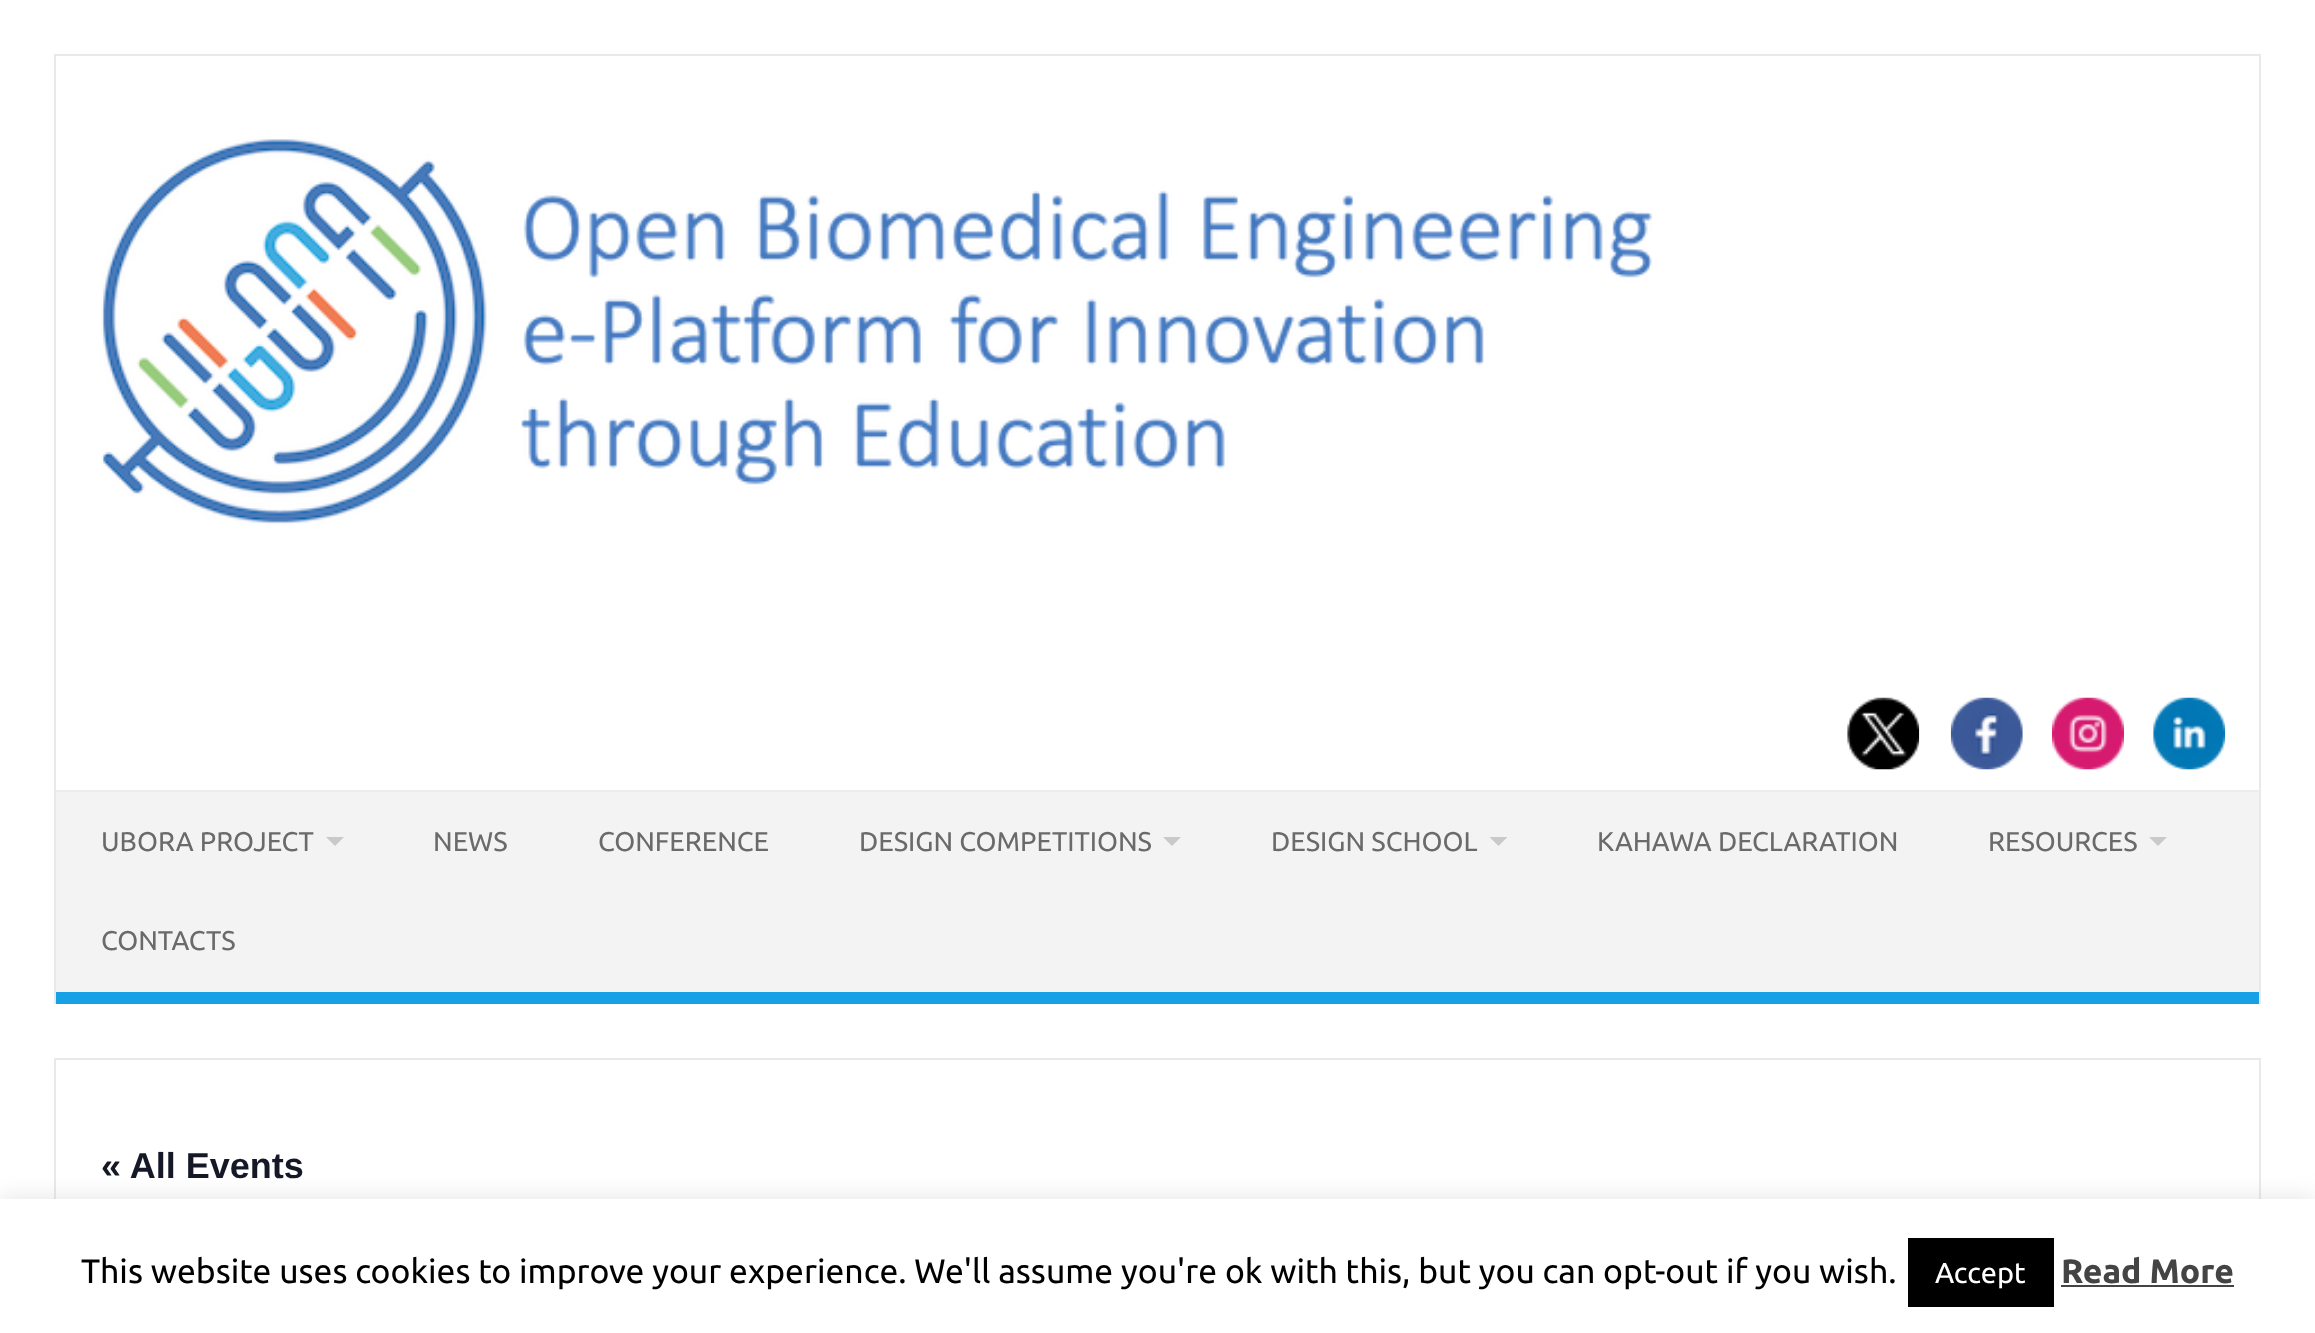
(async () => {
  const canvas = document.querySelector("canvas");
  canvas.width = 2315;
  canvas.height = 1333;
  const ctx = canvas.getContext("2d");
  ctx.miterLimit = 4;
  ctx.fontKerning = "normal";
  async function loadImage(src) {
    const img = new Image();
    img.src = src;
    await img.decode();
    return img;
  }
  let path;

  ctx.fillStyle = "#ffffff";
  ctx.fillRect(0, 0, 2315, 1333);
  for (const [x, y, w, h, color] of [
    [54, 54, 2207, 2, "#e9e9e9"],
    [2259, 54, 2, 950, "#e9e9e9"],
    [54, 54, 2, 950, "#e9e9e9"],
  ]) {
    ctx.fillStyle = color;
    ctx.fillRect(x, y, w, h);
  }
  ctx.drawImage(await loadImage("img/1.png"), 101, 139, 1552, 386);
  ctx.drawImage(await loadImage("img/2.png"), 1847, 697, 73, 73);
  ctx.drawImage(await loadImage("img/3.png"), 1950, 697, 73, 73);
  ctx.drawImage(await loadImage("img/4.png"), 2052, 697, 72, 73);
  ctx.drawImage(await loadImage("img/5.png"), 2153, 697, 73, 73);
  for (const [x, y, w, h, color] of [
    [56, 792, 2203, 200, "#f3f3f3"],
    [56, 790, 2203, 2, "#ededed"],
    [56, 992, 2203, 12, "#16a1e7"],
  ]) {
    ctx.fillStyle = color;
    ctx.fillRect(x, y, w, h);
  }
  ctx.fillStyle = "#c9c9c9";
  path = new Path2D("M326 837H344L335 846Z");
  ctx.fill(path);
  path = new Path2D("M1163 837H1181L1172 846Z");
  ctx.fill(path);
  path = new Path2D("M1489.5 837H1507.5L1498.5 846Z");
  ctx.fill(path);
  path = new Path2D("M2149 837H2167L2158 846Z");
  ctx.fill(path);
  ctx.strokeStyle = "#e9e9e9";
  ctx.lineWidth = 2;
  ctx.strokeRect(55, 1059, 2205, 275);
  ctx.fillStyle = "rgba(172, 171, 171, 0.3)";
  ctx.filter = "blur(11px)";
  ctx.beginPath();
  ctx.rect(0, 1197, 2315, 135);
  ctx.fill();
  ctx.filter = "none";
  for (const [x, y, w, h, color] of [
    [0, 1199, 2315, 134, "#ffffff"],
    [1908, 1238, 146, 69, "#000000"],
    [2061, 1285, 173, 2, "#444444"],
  ]) {
    ctx.fillStyle = color;
    ctx.fillRect(x, y, w, h);
  }
  ctx.font = "27px Ubuntu";
  ctx.fillStyle = "#6a6a6a";
  for (const [text, x, y] of [
    ["UBORA PROJECT", 101, 851],
    ["NEWS", 433, 851],
    ["CONFERENCE", 598, 851],
    ["DESIGN COMPETITIONS", 859, 851],
    ["DESIGN SCHOOL", 1271, 851],
    ["KAHAWA DECLARATION", 1597, 851],
    ["RESOURCES", 1988, 851],
    ["CONTACTS", 101, 950],
  ]) {
    ctx.fillText(text, x, y);
  }
  ctx.font = "bold 36px Liberation Sans";
  ctx.fillStyle = "#141827";
  ctx.fillText("« All Events", 101, 1178);
  ctx.font = "33.75px Ubuntu";
  ctx.fillStyle = "#000000";
  ctx.fillText("This website uses cookies to improve your experience. We'll assume you're ok with this, but you can opt-out if you wish.", 81, 1283);
  ctx.font = "29px Ubuntu";
  ctx.fillStyle = "#ffffff";
  ctx.fillText("Accept", 1935, 1283);
  ctx.font = "bold 33.75px Ubuntu";
  ctx.fillStyle = "#444444";
  ctx.fillText("Read More", 2061, 1283);
})();
